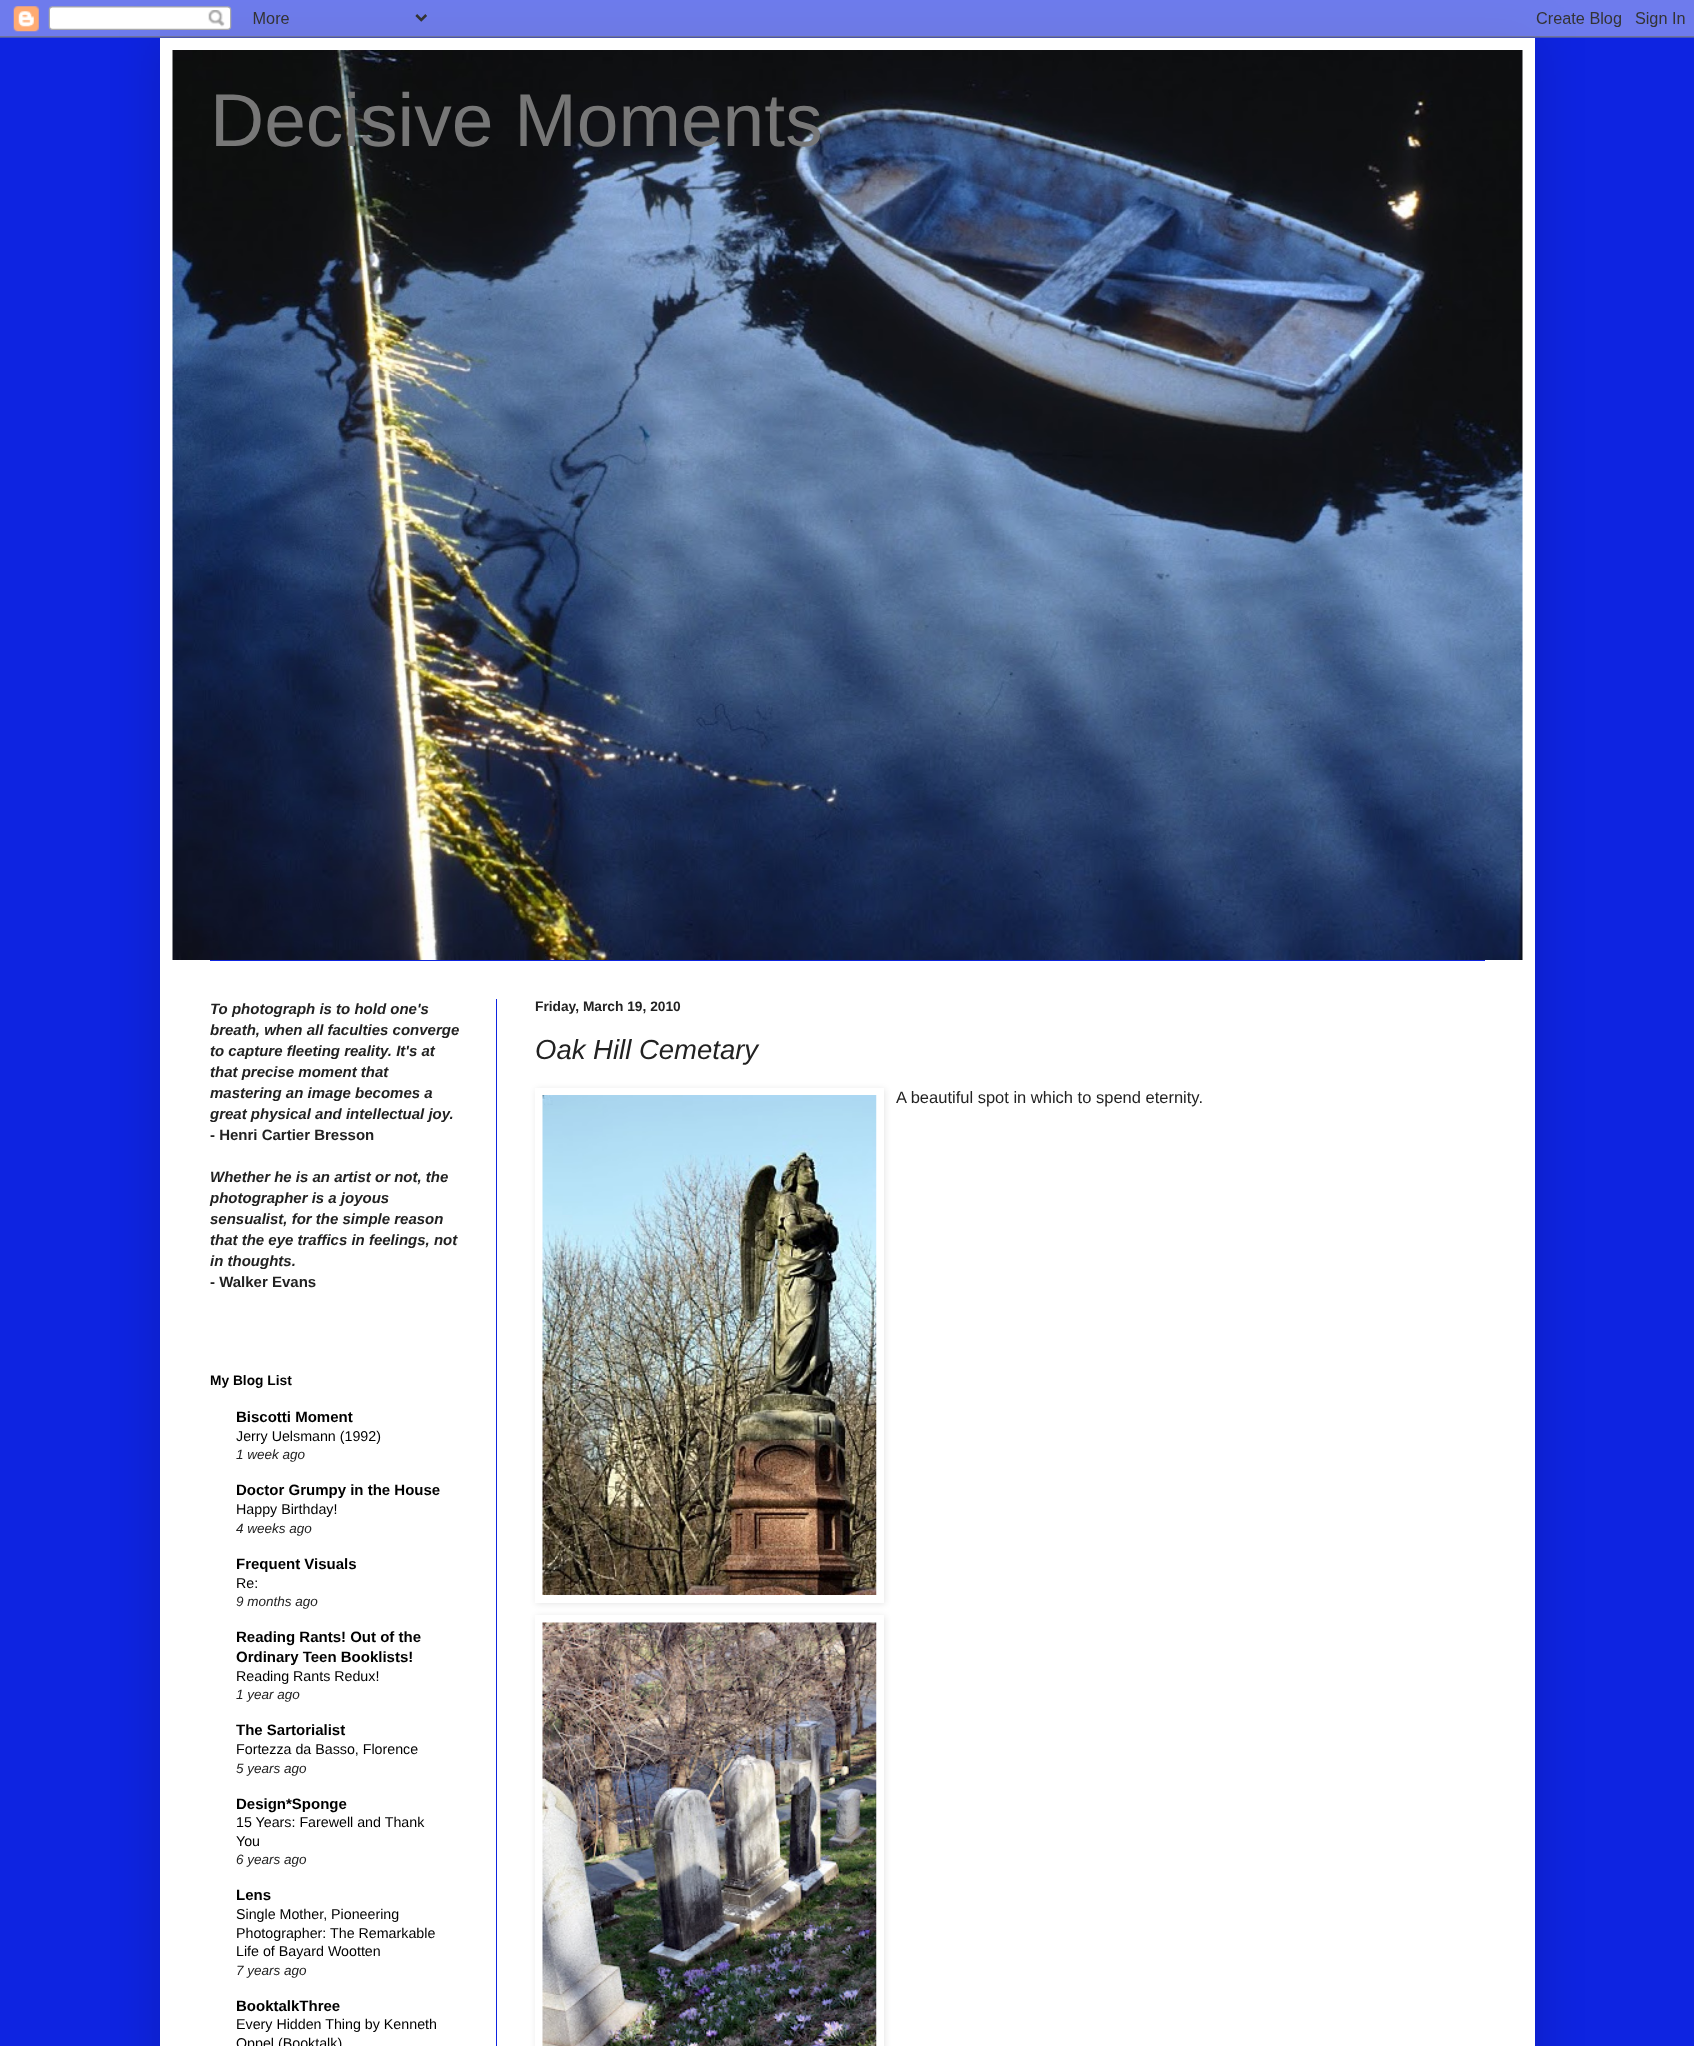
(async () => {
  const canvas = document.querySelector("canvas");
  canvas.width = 1694;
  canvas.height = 2046;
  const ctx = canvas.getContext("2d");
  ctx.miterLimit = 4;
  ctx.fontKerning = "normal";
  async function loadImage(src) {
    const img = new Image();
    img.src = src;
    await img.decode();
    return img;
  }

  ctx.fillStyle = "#0e24e1";
  ctx.fillRect(0, 0, 1694, 2046);
  ctx.fillStyle = "rgba(0, 0, 0, 0.15)";
  ctx.filter = "blur(25px)";
  ctx.beginPath();
  ctx.rect(160, 38, 1375, 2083);
  ctx.fill();
  ctx.filter = "none";
  ctx.drawImage(await loadImage("img/1.png"), 0, 0, 1694, 38);
  ctx.fillStyle = "#ffffff";
  ctx.fillRect(160, 38, 1375, 2008);
  ctx.drawImage(await loadImage("img/2.png"), 172, 50, 1351, 910);
  ctx.fillStyle = "#0e24e1";
  ctx.fillRect(210, 960, 1275, 1);
  ctx.fillRect(496, 999, 1, 1047);
  ctx.fillStyle = "rgba(0, 0, 0, 0.1)";
  ctx.filter = "blur(3px)";
  ctx.beginPath();
  ctx.rect(536, 1089, 349, 515);
  ctx.fill();
  ctx.filter = "none";
  ctx.fillStyle = "#ffffff";
  ctx.fillRect(535, 1088, 349, 515);
  ctx.drawImage(await loadImage("img/3.png"), 542, 1095, 335, 500);
  ctx.fillStyle = "rgba(0, 0, 0, 0.1)";
  ctx.filter = "blur(3px)";
  ctx.beginPath();
  ctx.rect(536, 1616, 349, 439);
  ctx.fill();
  ctx.filter = "none";
  ctx.fillStyle = "#ffffff";
  ctx.fillRect(535, 1615, 349, 431);
  ctx.drawImage(await loadImage("img/4.png"), 542, 1622, 335, 424);
  ctx.font = "75px Liberation Sans";
  ctx.fillStyle = "#777777";
  ctx.fillText("Decisive Moments", 210, 146);
  ctx.font = "italic bold 15px Liberation Sans";
  ctx.fillStyle = "#222222";
  for (const [text, x, y] of [
    ["To photograph is to hold one's", 210, 1014],
    ["breath, when all faculties converge", 210, 1035],
    ["to capture fleeting reality. It's at", 210, 1056],
    ["that precise moment that", 210, 1077],
    ["mastering an image becomes a", 210, 1098],
    ["great physical and intellectual joy.", 210, 1119],
  ]) {
    ctx.fillText(text, x, y);
  }
  ctx.font = "bold 15px Liberation Sans";
  ctx.fillText("- Henri Cartier Bresson", 210, 1140);
  ctx.font = "italic bold 15px Liberation Sans";
  for (const [text, x, y] of [
    ["Whether he is an artist or not, the", 210, 1182],
    ["photographer is a joyous", 210, 1203],
    ["sensualist, for the simple reason", 210, 1224],
    ["that the eye traffics in feelings, not", 210, 1245],
    ["in thoughts.", 210, 1266],
  ]) {
    ctx.fillText(text, x, y);
  }
  ctx.font = "bold 15px Liberation Sans";
  ctx.fillText("- Walker Evans", 210, 1287);
  ctx.font = "bold 13.75px Liberation Sans";
  ctx.fillStyle = "#000000";
  ctx.fillText("My Blog List", 210, 1385);
  ctx.font = "bold 15px Liberation Sans";
  ctx.fillText("Biscotti Moment", 236, 1422);
  ctx.font = "14.25px Liberation Sans";
  ctx.fillText("Jerry Uelsmann (1992)", 236, 1441);
  ctx.font = "italic 13.5px Liberation Sans";
  ctx.fillStyle = "#222222";
  ctx.fillText("1 week ago", 236, 1459);
  ctx.font = "bold 15px Liberation Sans";
  ctx.fillStyle = "#000000";
  ctx.fillText("Doctor Grumpy in the House", 236, 1495);
  ctx.font = "14.25px Liberation Sans";
  ctx.fillText("Happy Birthday!", 236, 1514);
  ctx.font = "italic 13.5px Liberation Sans";
  ctx.fillStyle = "#222222";
  ctx.fillText("4 weeks ago", 236, 1533);
  ctx.font = "bold 15px Liberation Sans";
  ctx.fillStyle = "#000000";
  ctx.fillText("Frequent Visuals", 236, 1569);
  ctx.font = "14.25px Liberation Sans";
  ctx.fillText("Re:", 236, 1588);
  ctx.font = "italic 13.5px Liberation Sans";
  ctx.fillStyle = "#222222";
  ctx.fillText("9 months ago", 236, 1606);
  ctx.font = "bold 15px Liberation Sans";
  ctx.fillStyle = "#000000";
  ctx.fillText("Reading Rants! Out of the", 236, 1642);
  ctx.fillText("Ordinary Teen Booklists!", 236, 1662);
  ctx.font = "14.25px Liberation Sans";
  ctx.fillText("Reading Rants Redux!", 236, 1681);
  ctx.font = "italic 13.5px Liberation Sans";
  ctx.fillStyle = "#222222";
  ctx.fillText("1 year ago", 236, 1699);
  ctx.font = "bold 15px Liberation Sans";
  ctx.fillStyle = "#000000";
  ctx.fillText("The Sartorialist", 236, 1735);
  ctx.font = "14.25px Liberation Sans";
  ctx.fillText("Fortezza da Basso, Florence", 236, 1754);
  ctx.font = "italic 13.5px Liberation Sans";
  ctx.fillStyle = "#222222";
  ctx.fillText("5 years ago", 236, 1773);
  ctx.font = "bold 15px Liberation Sans";
  ctx.fillStyle = "#000000";
  ctx.fillText("Design*Sponge", 236, 1809);
  ctx.font = "14.25px Liberation Sans";
  ctx.fillText("15 Years: Farewell and Thank", 236, 1827);
  ctx.fillText("You", 236, 1846);
  ctx.font = "italic 13.5px Liberation Sans";
  ctx.fillStyle = "#222222";
  ctx.fillText("6 years ago", 236, 1864);
  ctx.font = "bold 15px Liberation Sans";
  ctx.fillStyle = "#000000";
  ctx.fillText("Lens", 236, 1900);
  ctx.font = "14.25px Liberation Sans";
  for (const [text, x, y] of [
    ["Single Mother, Pioneering", 236, 1919],
    ["Photographer: The Remarkable", 236, 1938],
    ["Life of Bayard Wootten", 236, 1956],
  ]) {
    ctx.fillText(text, x, y);
  }
  ctx.font = "italic 13.5px Liberation Sans";
  ctx.fillStyle = "#222222";
  ctx.fillText("7 years ago", 236, 1975);
  ctx.font = "bold 15px Liberation Sans";
  ctx.fillStyle = "#000000";
  ctx.fillText("BooktalkThree", 236, 2011);
  ctx.font = "14.25px Liberation Sans";
  ctx.fillText("Every Hidden Thing by Kenneth", 236, 2029);
  ctx.fillText("Oppel (Booktalk)", 236, 2048);
  ctx.font = "bold 13.75px Liberation Sans";
  ctx.fillStyle = "#222222";
  ctx.fillText("Friday, March 19, 2010", 535, 1011);
  ctx.font = "italic 27.5px Liberation Sans";
  ctx.fillText("Oak Hill Cemetary", 535, 1059);
  ctx.font = "16.5px Liberation Sans";
  ctx.fillText("A beautiful spot in which to spend eternity.", 896, 1103);
})();
